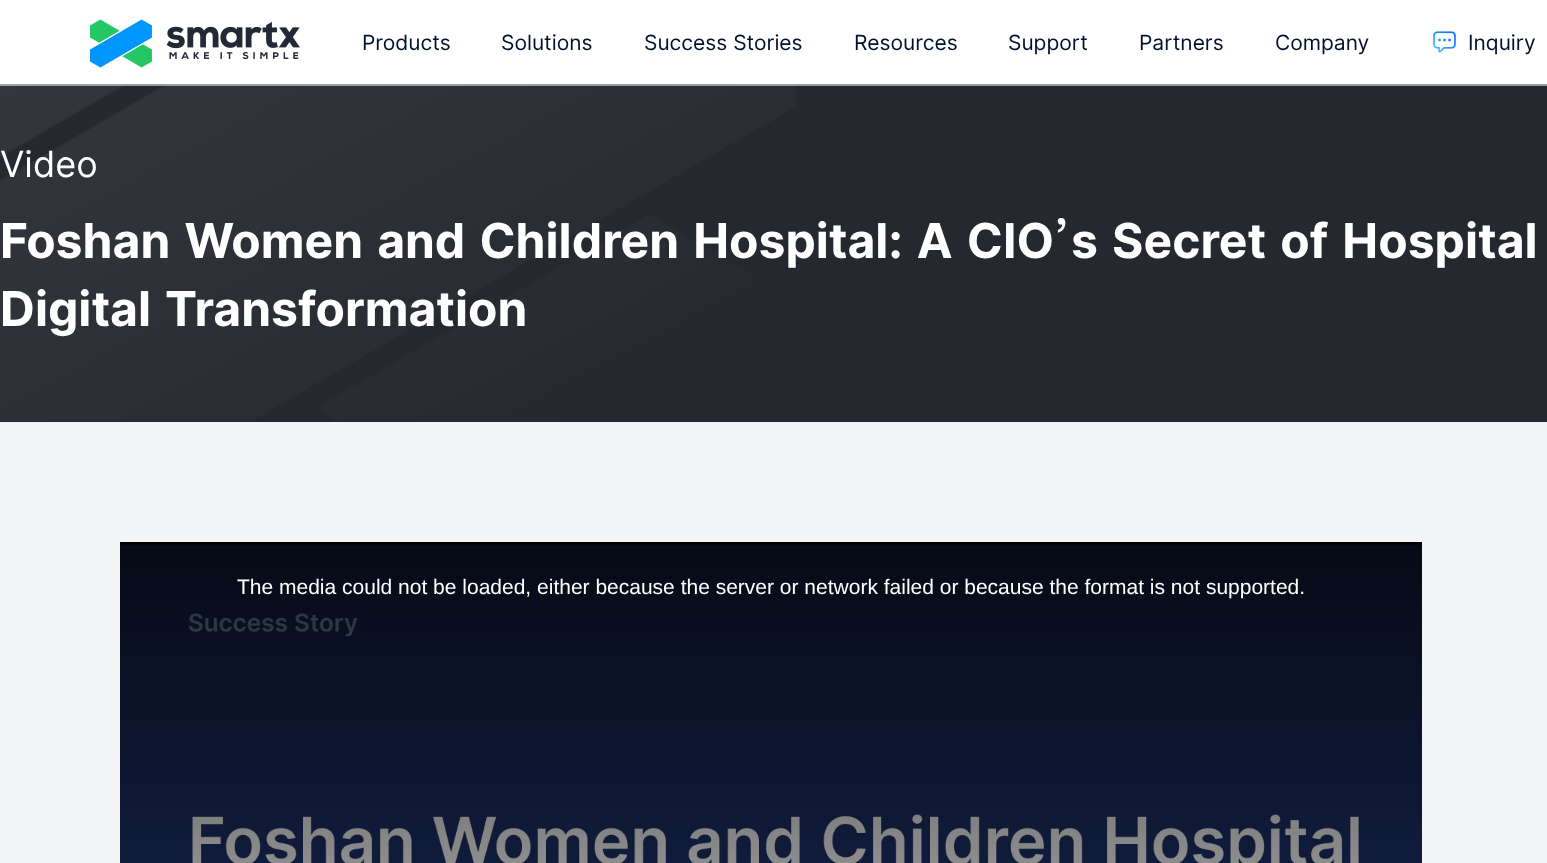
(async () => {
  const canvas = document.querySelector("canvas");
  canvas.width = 1547;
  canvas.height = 863;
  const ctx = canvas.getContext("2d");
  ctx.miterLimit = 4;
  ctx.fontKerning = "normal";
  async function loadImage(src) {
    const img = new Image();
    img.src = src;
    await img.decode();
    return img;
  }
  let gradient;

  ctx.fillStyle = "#f2f4f6";
  ctx.fillRect(0, 0, 1547, 863);
  ctx.fillStyle = "#25282e";
  ctx.fillRect(0, 84, 1547, 338);
  ctx.drawImage(await loadImage("img/3.png"), 0, 84, 796, 337);
  ctx.fillStyle = "rgba(225, 230, 241, 0.6)";
  ctx.fillRect(0, 84, 1547, 2);
  ctx.fillStyle = "#ffffff";
  ctx.fillRect(0, 0, 1547, 84);
  ctx.drawImage(await loadImage("img/1.png"), 90, 19, 210, 49);
  ctx.drawImage(await loadImage("img/2.png"), 1433, 31, 23, 22);
  ctx.fillStyle = "#000000";
  ctx.fillRect(120, 542, 1302, 3);
  ctx.drawImage(await loadImage("img/4.png"), 120, 544, 1302, 319);
  gradient = ctx.createLinearGradient(771, 541, 771, 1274);
  gradient.addColorStop(0, "rgba(0, 0, 0, 0.8)");
  gradient.addColorStop(1, "rgba(0, 0, 0, 0)");
  ctx.fillStyle = gradient;
  ctx.fillRect(120, 544, 1302, 319);
  ctx.font = "21px Inter";
  ctx.fillStyle = "#00122e";
  for (const [text, x, y] of [
    ["Products", 362, 50],
    ["Solutions", 501, 50],
    ["Success Stories", 644, 50],
    ["Resources", 854, 50],
    ["Support", 1008, 50],
    ["Partners", 1139, 50],
    ["Company", 1275, 50],
    ["Inquiry", 1468, 50],
  ]) {
    ctx.fillText(text, x, y);
  }
  ctx.font = "36px Inter";
  ctx.fillStyle = "#ffffff";
  ctx.fillText("Video", 0, 177);
  ctx.wordSpacing = "3px";
  ctx.font = "bold 48px Inter";
  ctx.fillText("Foshan Women and Children Hospital: A CIO", 0, 258);
  ctx.wordSpacing = "0px";
  ctx.font = "600 48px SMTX";
  ctx.fillText("’", 1054, 258);
  ctx.wordSpacing = "3px";
  ctx.font = "bold 48px Inter";
  ctx.fillText("s Secret of Hospital", 1071, 258);
  ctx.fillText("Digital Transformation", 0, 326);
  ctx.wordSpacing = "0px";
  ctx.font = "21px Liberation Sans";
  ctx.fillText("The media could not be loaded, either because the server or network failed or because the format is not supported.", 237, 594);
})();
